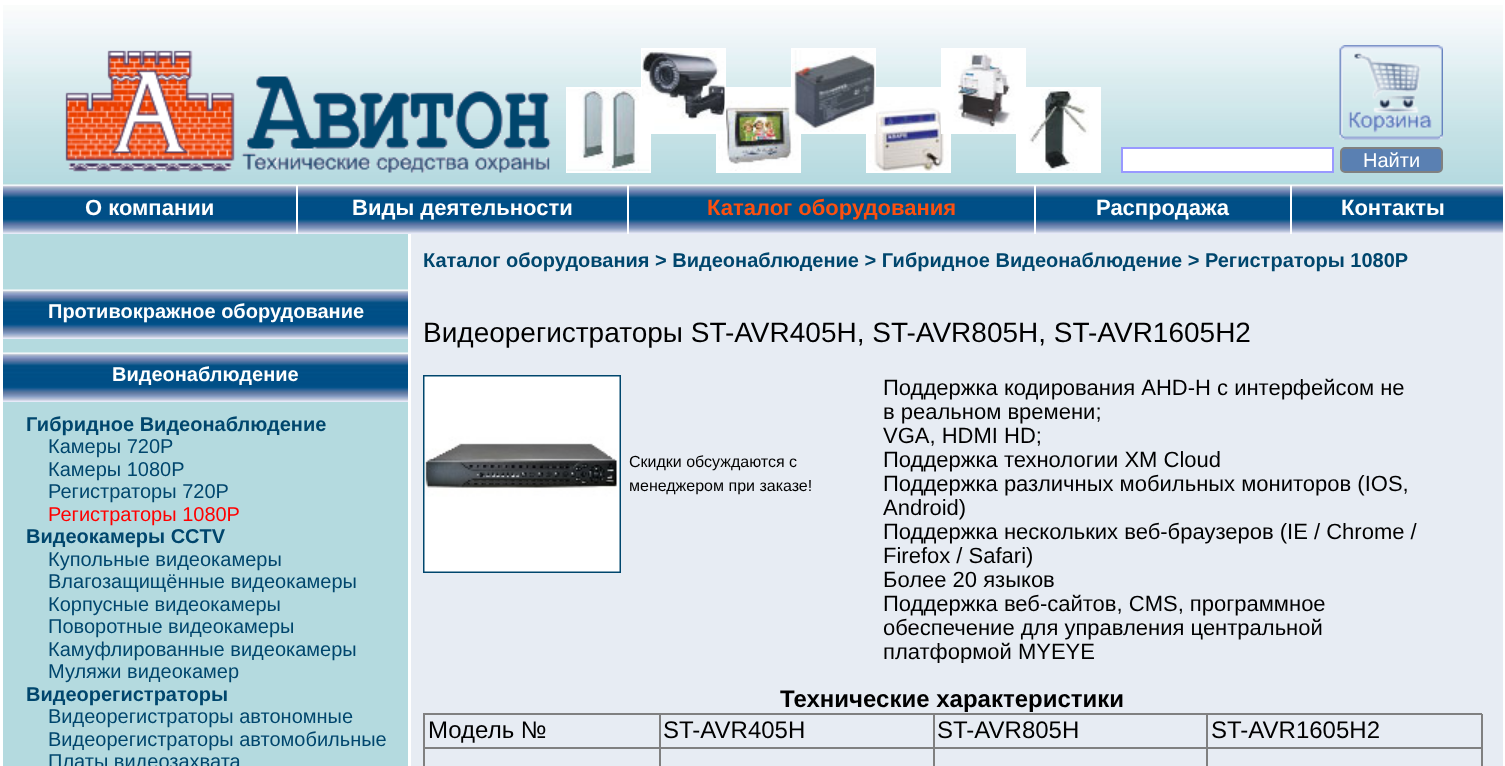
(async () => {
  const canvas = document.querySelector("canvas");
  canvas.width = 1505;
  canvas.height = 766;
  const ctx = canvas.getContext("2d");
  ctx.miterLimit = 4;
  ctx.fontKerning = "normal";
  async function loadImage(src) {
    const img = new Image();
    img.src = src;
    await img.decode();
    return img;
  }

  ctx.fillStyle = "#ffffff";
  ctx.fillRect(0, 0, 1505, 766);
  ctx.drawImage(await loadImage("img/1.png"), 3, 5, 1500, 229);
  ctx.drawImage(await loadImage("img/2.png"), 65, 50, 486, 123);
  ctx.strokeStyle = "#ffffff";
  ctx.lineWidth = 2;
  ctx.strokeRect(567, 88, 83, 84);
  ctx.drawImage(await loadImage("img/3.png"), 567, 89, 83, 82);
  ctx.strokeRect(717, 88, 83, 84);
  ctx.drawImage(await loadImage("img/5.png"), 718, 89, 81, 82);
  ctx.strokeRect(642, 49, 83, 84);
  ctx.drawImage(await loadImage("img/4.png"), 642, 50, 83, 82);
  ctx.strokeRect(867, 88, 83, 84);
  ctx.drawImage(await loadImage("img/7.png"), 868, 89, 81, 82);
  ctx.strokeRect(792, 49, 83, 84);
  ctx.drawImage(await loadImage("img/6.png"), 792, 50, 83, 82);
  ctx.strokeRect(1017, 88, 83, 84);
  ctx.drawImage(await loadImage("img/9.png"), 1018, 89, 81, 82);
  ctx.strokeRect(942, 49, 83, 84);
  ctx.drawImage(await loadImage("img/8.png"), 943, 50, 81, 82);
  ctx.drawImage(await loadImage("img/10.png"), 1339, 45, 104, 95);
  ctx.beginPath();
  ctx.rect(1122, 148, 211, 24);
  ctx.fill();
  ctx.strokeStyle = "#9999ff";
  ctx.stroke();
  ctx.fillStyle = "#5a80b2";
  ctx.beginPath();
  ctx.roundRect(1341, 148, 101, 24, 4);
  ctx.fill();
  ctx.strokeStyle = "#808080";
  ctx.stroke();
  for (const [x, y, w, h, color] of [
    [296, 185, 2, 49, "#ffffff"],
    [627, 185, 2, 49, "#ffffff"],
    [1034, 185, 2, 49, "#ffffff"],
    [1290, 185, 2, 49, "#ffffff"],
    [3, 234, 405, 532, "#b4dadf"],
  ]) {
    ctx.fillStyle = color;
    ctx.fillRect(x, y, w, h);
  }
  ctx.drawImage(await loadImage("img/11.png"), 3, 289, 405, 50);
  ctx.drawImage(await loadImage("img/11.png"), 3, 352, 405, 50);
  ctx.fillStyle = "#e7ecf3";
  ctx.fillRect(411, 234, 1092, 532);
  ctx.strokeStyle = "#00466d";
  ctx.strokeRect(424, 376, 196, 196);
  ctx.drawImage(await loadImage("img/12.png"), 424, 376, 196, 196);
  for (const [x, y, w, h, color] of [
    [423, 713, 1059, 2, "#808080"],
    [423, 713, 2, 53, "#808080"],
    [659, 714, 2, 52, "#808080"],
    [425, 747, 235, 2, "#808080"],
    [933, 714, 2, 52, "#808080"],
    [660, 747, 275, 2, "#808080"],
    [1206, 714, 2, 52, "#808080"],
    [935, 747, 273, 2, "#808080"],
    [1481, 714, 2, 52, "#808080"],
    [1208, 747, 274, 2, "#808080"],
  ]) {
    ctx.fillStyle = color;
    ctx.fillRect(x, y, w, h);
  }
  ctx.font = "20px Liberation Sans";
  ctx.fillStyle = "#ffffff";
  ctx.fillText("Найти", 1363, 167);
  ctx.font = "bold 22px Liberation Sans";
  ctx.fillText("О компании", 85, 215);
  ctx.fillText("Виды деятельности", 352, 215);
  ctx.fillStyle = "#fb5010";
  ctx.fillText("Каталог оборудования", 707, 215);
  ctx.fillStyle = "#ffffff";
  ctx.fillText("Распродажа", 1096, 215);
  ctx.fillText("Контакты", 1341, 215);
  ctx.font = "bold 20px Liberation Sans";
  ctx.fillText("Противокражное оборудование", 48, 318);
  ctx.fillText("Видеонаблюдение", 112, 381);
  ctx.fillStyle = "#00466d";
  ctx.fillText("Гибридное Видеонаблюдение", 26, 431);
  ctx.font = "20px Liberation Sans";
  for (const [text, x, y] of [
    ["Камеры 720P", 48, 453],
    ["Камеры 1080Р", 48, 476],
    ["Регистраторы 720P", 48, 498],
  ]) {
    ctx.fillText(text, x, y);
  }
  ctx.fillStyle = "#ff0000";
  ctx.fillText("Регистраторы 1080Р", 48, 521);
  ctx.font = "bold 20px Liberation Sans";
  ctx.fillStyle = "#00466d";
  ctx.fillText("Видеокамеры CCTV", 26, 543);
  ctx.font = "20px Liberation Sans";
  for (const [text, x, y] of [
    ["Купольные видеокамеры", 48, 566],
    ["Влагозащищённые видеокамеры", 48, 588],
    ["Корпусные видеокамеры", 48, 611],
    ["Поворотные видеокамеры", 48, 633],
    ["Камуфлированные видеокамеры", 48, 656],
    ["Муляжи видеокамер", 48, 678],
  ]) {
    ctx.fillText(text, x, y);
  }
  ctx.font = "bold 20px Liberation Sans";
  ctx.fillText("Видеорегистраторы", 26, 701);
  ctx.font = "20px Liberation Sans";
  for (const [text, x, y] of [
    ["Видеорегистраторы автономные", 48, 723],
    ["Видеорегистраторы автомобильные", 48, 746],
    ["Платы видеозахвата", 48, 768],
  ]) {
    ctx.fillText(text, x, y);
  }
  ctx.font = "bold 20px Liberation Sans";
  ctx.fillText("Каталог оборудования > Видеонаблюдение > Гибридное Видеонаблюдение > Регистраторы 1080Р", 423, 267);
  ctx.font = "28px Liberation Sans";
  ctx.fillStyle = "#000000";
  ctx.fillText("Видеорегистраторы ST-AVR405H, ST-AVR805H, ST-AVR1605H2", 423, 342);
  ctx.font = "16px Liberation Sans";
  ctx.fillText("Скидки обсуждаются с", 629, 467);
  ctx.fillText("менеджером при заказе!", 629, 491);
  ctx.font = "22px Liberation Sans";
  for (const [text, x, y] of [
    ["Поддержка кодирования AHD-H с интерфейсом не", 883, 395],
    ["в реальном времени;", 883, 419],
    ["VGA, HDMI HD;", 883, 443],
    ["Поддержка технологии XM Cloud", 883, 467],
    ["Поддержка различных мобильных мониторов (IOS,", 883, 491],
    ["Android)", 883, 515],
    ["Поддержка нескольких веб-браузеров (IE / Chrome /", 883, 539],
    ["Firefox / Safari)", 883, 563],
    ["Более 20 языков", 883, 587],
    ["Поддержка веб-сайтов, CMS, программное", 883, 611],
    ["обеспечение для управления центральной", 883, 635],
  ]) {
    ctx.fillText(text, x, y);
  }
  ctx.save();
  ctx.beginPath();
  ctx.rect(423, 375, 1070, 288);
  ctx.clip();
  ctx.fillText("платформой MYEYE", 883, 659);
  ctx.restore();
  ctx.font = "bold 24px Liberation Sans";
  ctx.fillText("Технические характеристики", 780, 707);
  ctx.font = "24px Liberation Sans";
  for (const [text, x, y] of [
    ["Модель №", 428, 738],
    ["ST-AVR405H", 663, 738],
    ["ST-AVR805H", 937, 738],
    ["ST-AVR1605H2", 1211, 738],
  ]) {
    ctx.fillText(text, x, y);
  }
})();
